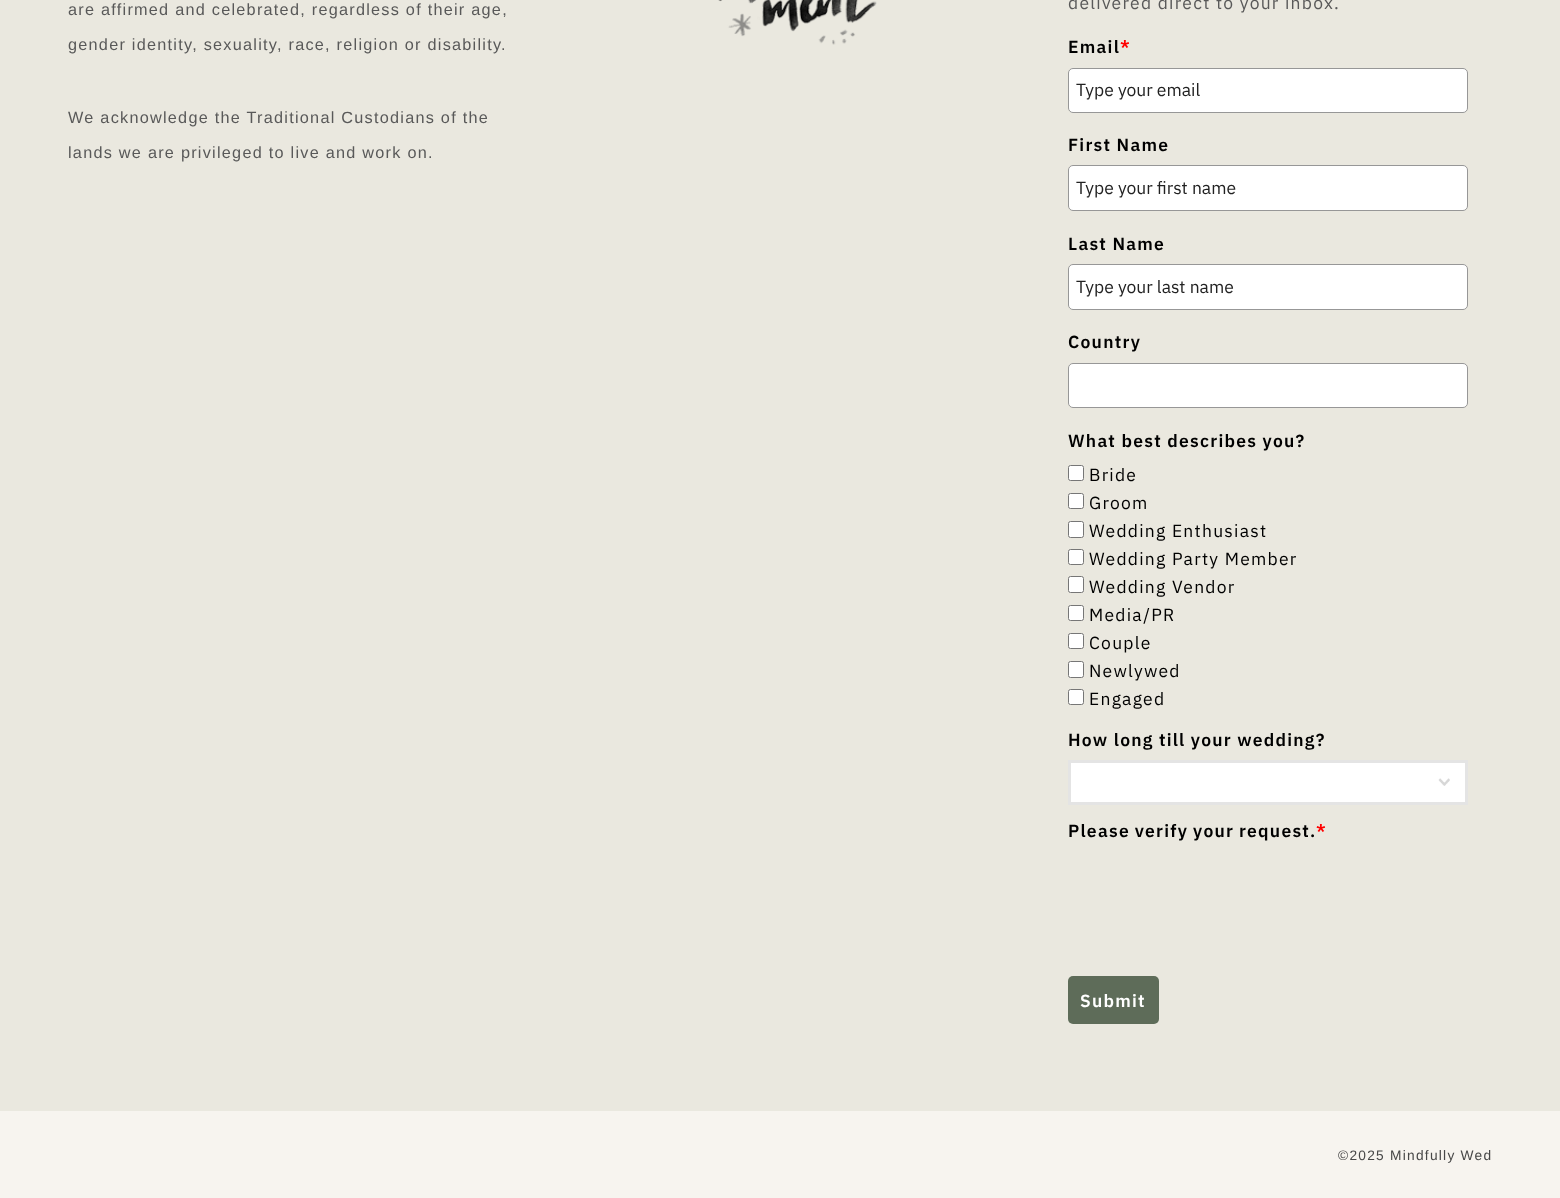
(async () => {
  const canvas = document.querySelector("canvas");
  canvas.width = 1560;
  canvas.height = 1198;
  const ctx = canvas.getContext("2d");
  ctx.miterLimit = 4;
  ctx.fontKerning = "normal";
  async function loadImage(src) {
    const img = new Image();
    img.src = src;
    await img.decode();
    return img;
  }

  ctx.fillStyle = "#eae8df";
  ctx.fillRect(0, 0, 1560, 1198);
  ctx.drawImage(await loadImage("img/1.png"), 718, 0, 159, 45);
  ctx.fillStyle = "#ffffff";
  ctx.beginPath();
  ctx.roundRect(1068.5, 68.5, 399, 44, 4.5);
  ctx.fill();
  ctx.strokeStyle = "#979797";
  ctx.stroke();
  ctx.beginPath();
  ctx.roundRect(1068.5, 165.5, 399, 45, 4.5);
  ctx.fill();
  ctx.stroke();
  ctx.beginPath();
  ctx.roundRect(1068.5, 264.5, 399, 45, 4.5);
  ctx.fill();
  ctx.stroke();
  ctx.beginPath();
  ctx.roundRect(1068.5, 363.5, 399, 44, 4.5);
  ctx.fill();
  ctx.stroke();
  ctx.beginPath();
  ctx.roundRect(1068.5, 465.5, 15, 15, 2);
  ctx.fill();
  ctx.strokeStyle = "#767676";
  ctx.stroke();
  ctx.beginPath();
  ctx.roundRect(1068.5, 493.5, 15, 15, 2);
  ctx.fill();
  ctx.stroke();
  ctx.beginPath();
  ctx.roundRect(1068.5, 521.5, 15, 16, 2);
  ctx.fill();
  ctx.stroke();
  ctx.beginPath();
  ctx.roundRect(1068.5, 549.5, 15, 15, 2);
  ctx.fill();
  ctx.stroke();
  ctx.beginPath();
  ctx.roundRect(1068.5, 576.5, 15, 16, 2);
  ctx.fill();
  ctx.stroke();
  ctx.beginPath();
  ctx.roundRect(1068.5, 605.5, 15, 15, 2);
  ctx.fill();
  ctx.stroke();
  ctx.beginPath();
  ctx.roundRect(1068.5, 633.5, 15, 15, 2);
  ctx.fill();
  ctx.stroke();
  ctx.beginPath();
  ctx.roundRect(1068.5, 661.5, 15, 16, 2);
  ctx.fill();
  ctx.stroke();
  ctx.beginPath();
  ctx.roundRect(1068.5, 689.5, 15, 15, 2);
  ctx.fill();
  ctx.stroke();
  ctx.fillRect(1071, 763, 394, 39);
  ctx.drawImage(await loadImage("img/2.png"), 1438, 778, 12, 8);
  ctx.strokeStyle = "#e4e4e4";
  ctx.lineWidth = 3;
  ctx.strokeRect(1069.5, 761.5, 397, 42);
  ctx.fillStyle = "#5e6c59";
  ctx.beginPath();
  ctx.roundRect(1068, 976, 91, 48, 5);
  ctx.fill();
  ctx.fillStyle = "#f7f4ef";
  ctx.fillRect(0, 1111, 1560, 87);
  ctx.letterSpacing = "1.25px";
  ctx.font = "16.25px Arimo";
  ctx.fillStyle = "#595959";
  for (const [text, x, y] of [
    ["are affirmed and celebrated, regardless of their age,", 68, 15],
    ["gender identity, sexuality, race, religion or disability.", 68, 50],
    ["We acknowledge the Traditional Custodians of the", 68, 123],
    ["lands we are privileged to live and work on.", 68, 158],
  ]) {
    ctx.fillText(text, x, y);
  }
  ctx.font = "17.5px IBM Plex Sans";
  ctx.fillText("delivered direct to your inbox.", 1068, 9);
  ctx.font = "600 17.5px IBM Plex Sans";
  ctx.fillStyle = "#000000";
  ctx.fillText("Email", 1068, 53);
  ctx.fillStyle = "#ff0000";
  ctx.fillText("*", 1120, 53);
  ctx.letterSpacing = "0px";
  ctx.font = "17.5px IBM Plex Sans";
  ctx.fillStyle = "#222222";
  ctx.fillText("Type your email", 1076, 96);
  ctx.letterSpacing = "1.25px";
  ctx.font = "600 17.5px IBM Plex Sans";
  ctx.fillStyle = "#000000";
  ctx.fillText("First Name", 1068, 151);
  ctx.letterSpacing = "0px";
  ctx.font = "17.5px IBM Plex Sans";
  ctx.fillStyle = "#222222";
  ctx.fillText("Type your first name", 1076, 194);
  ctx.letterSpacing = "1.25px";
  ctx.font = "600 17.5px IBM Plex Sans";
  ctx.fillStyle = "#000000";
  ctx.fillText("Last Name", 1068, 250);
  ctx.letterSpacing = "0px";
  ctx.font = "17.5px IBM Plex Sans";
  ctx.fillStyle = "#222222";
  ctx.fillText("Type your last name", 1076, 293);
  ctx.letterSpacing = "1.25px";
  ctx.font = "600 17.5px IBM Plex Sans";
  ctx.fillStyle = "#000000";
  ctx.fillText("Country", 1068, 348);
  ctx.fillText("What best describes you?", 1068, 447);
  ctx.font = "17.5px IBM Plex Sans";
  for (const [text, x, y] of [
    ["Bride", 1089, 481],
    ["Groom", 1089, 509],
    ["Wedding Enthusiast", 1089, 537],
    ["Wedding Party Member", 1089, 565],
    ["Wedding Vendor", 1089, 593],
    ["Media/PR", 1089, 621],
    ["Couple", 1089, 649],
    ["Newlywed", 1089, 677],
    ["Engaged", 1089, 705],
  ]) {
    ctx.fillText(text, x, y);
  }
  ctx.font = "600 17.5px IBM Plex Sans";
  ctx.fillText("How long till your wedding?", 1068, 746);
  ctx.wordSpacing = "-0.5px";
  ctx.fillText("Please verify your request.", 1068, 837);
  ctx.wordSpacing = "0px";
  ctx.fillStyle = "#ff0000";
  ctx.fillText("*", 1316, 837);
  ctx.fillStyle = "#ffffff";
  ctx.fillText("Submit", 1080, 1007);
  ctx.font = "13.75px Arimo";
  ctx.fillStyle = "#474747";
  ctx.fillText("©2025 Mindfully Wed", 1338, 1160);
})();
